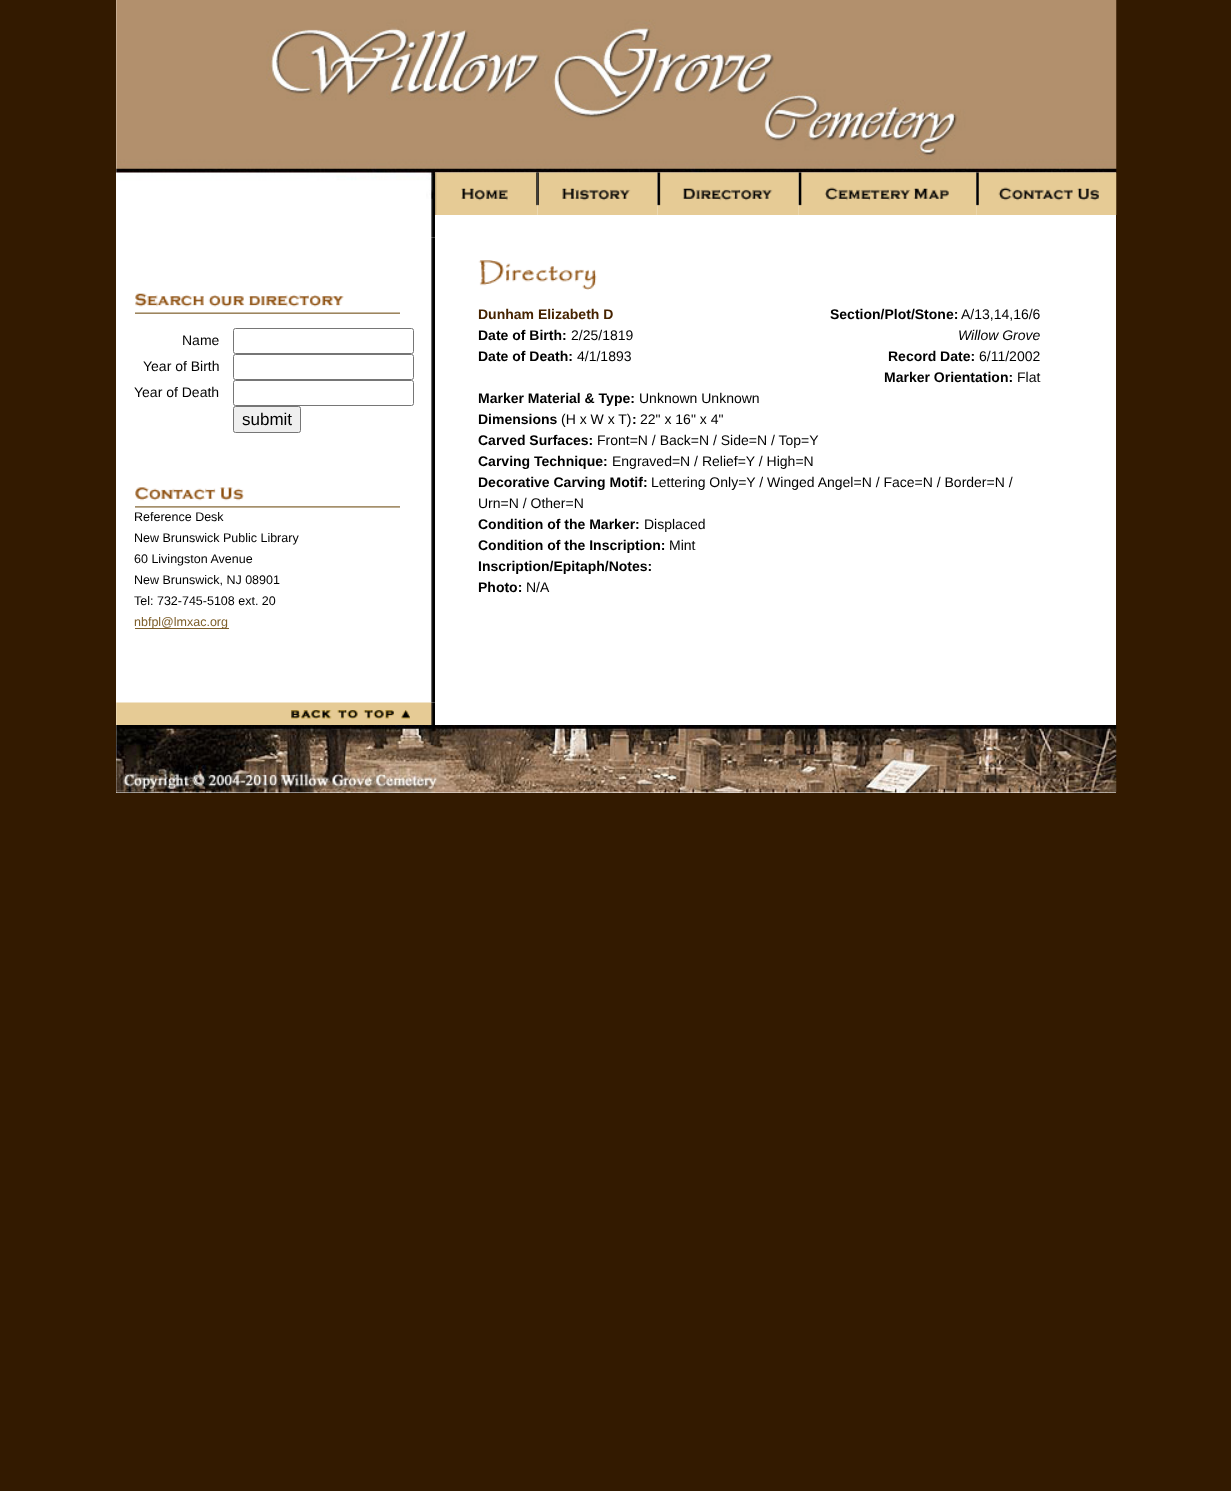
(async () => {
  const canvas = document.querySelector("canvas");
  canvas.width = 1231;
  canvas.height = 1491;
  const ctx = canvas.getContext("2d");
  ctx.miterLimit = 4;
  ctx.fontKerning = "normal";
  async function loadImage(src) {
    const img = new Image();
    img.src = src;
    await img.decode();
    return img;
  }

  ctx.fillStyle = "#331a00";
  ctx.fillRect(0, 0, 1231, 1491);
  ctx.fillStyle = "#ffffff";
  ctx.fillRect(116, 0, 1000, 793);
  ctx.drawImage(await loadImage("img/1.png"), 431, 198, 4, 40);
  ctx.drawImage(await loadImage("img/2.png"), 116, 0, 319, 199);
  ctx.drawImage(await loadImage("img/3.png"), 435, 0, 682, 173);
  ctx.drawImage(await loadImage("img/4.png"), 435, 172, 103, 43);
  ctx.drawImage(await loadImage("img/5.png"), 537, 172, 121, 43);
  ctx.drawImage(await loadImage("img/6.png"), 657, 172, 142, 43);
  ctx.drawImage(await loadImage("img/7.png"), 798, 172, 179, 43);
  ctx.drawImage(await loadImage("img/8.png"), 976, 172, 141, 43);
  ctx.drawImage(await loadImage("img/9.png"), 431, 237, 4, 466);
  ctx.drawImage(await loadImage("img/10.png"), 135, 293, 265, 21);
  ctx.beginPath();
  ctx.roundRect(233.5, 328.5, 180, 25, 2);
  ctx.strokeStyle = "#767676";
  ctx.stroke();
  ctx.beginPath();
  ctx.roundRect(233.5, 354.5, 180, 25, 2);
  ctx.stroke();
  ctx.beginPath();
  ctx.roundRect(233.5, 380.5, 180, 25, 2);
  ctx.stroke();
  ctx.fillStyle = "#efefef";
  ctx.beginPath();
  ctx.roundRect(233.5, 406.5, 67, 26, 2);
  ctx.fill();
  ctx.stroke();
  ctx.drawImage(await loadImage("img/11.png"), 135, 487, 265, 21);
  ctx.fillStyle = "#7d5e2a";
  ctx.fillRect(135, 628, 94, 1);
  ctx.drawImage(await loadImage("img/12.png"), 478, 260, 119, 30);
  ctx.drawImage(await loadImage("img/13.png"), 116, 702, 319, 23);
  ctx.drawImage(await loadImage("img/14.png"), 291, 710, 119, 9);
  ctx.drawImage(await loadImage("img/15.png"), 116, 725, 1001, 68);
  ctx.font = "14px Liberation Sans";
  ctx.fillStyle = "#000000";
  for (const [text, x, y] of [
    ["Name", 182, 345],
    ["Year of Birth", 143, 371],
    ["Year of Death", 134, 397],
  ]) {
    ctx.fillText(text, x, y);
  }
  ctx.font = "17px Liberation Sans";
  ctx.fillText("submit", 242, 425);
  ctx.font = "12.5px Liberation Sans";
  for (const [text, x, y] of [
    ["Reference Desk", 134, 521],
    ["New Brunswick Public Library", 134, 542],
    ["60 Livingston Avenue", 134, 563],
    ["New Brunswick, NJ 08901", 134, 584],
    ["Tel: 732-745-5108 ext. 20", 134, 605],
  ]) {
    ctx.fillText(text, x, y);
  }
  ctx.fillStyle = "#7d5e2a";
  ctx.fillText("nbfpl@lmxac.org", 134, 626);
  ctx.font = "bold 14px Liberation Sans";
  ctx.fillStyle = "#462300";
  ctx.fillText("Dunham Elizabeth D", 478, 319);
  ctx.fillStyle = "#000000";
  ctx.fillText("Date of Birth:", 478, 340);
  ctx.font = "14px Liberation Sans";
  ctx.fillText("2/25/1819", 571, 340);
  ctx.font = "bold 14px Liberation Sans";
  ctx.fillText("Date of Death:", 478, 361);
  ctx.font = "14px Liberation Sans";
  ctx.fillText("4/1/1893", 577, 361);
  ctx.font = "bold 14px Liberation Sans";
  ctx.fillText("Marker Material & Type:", 478, 403);
  ctx.font = "14px Liberation Sans";
  ctx.fillText("Unknown Unknown", 639, 403);
  ctx.font = "bold 14px Liberation Sans";
  ctx.fillText("Dimensions", 478, 424);
  ctx.font = "14px Liberation Sans";
  ctx.fillText("(H x W x T)", 561, 424);
  ctx.font = "bold 14px Liberation Sans";
  ctx.fillText(":", 632, 424);
  ctx.font = "14px Liberation Sans";
  ctx.fillText("22\" x 16\" x 4\"", 640, 424);
  ctx.font = "bold 14px Liberation Sans";
  ctx.fillText("Section/Plot/Stone:", 830, 319);
  ctx.font = "14px Liberation Sans";
  ctx.fillText("A/13,14,16/6", 961, 319);
  ctx.font = "italic 14px Liberation Sans";
  ctx.fillText("Willow Grove", 958, 340);
  ctx.font = "bold 14px Liberation Sans";
  ctx.fillText("Record Date:", 888, 361);
  ctx.font = "14px Liberation Sans";
  ctx.fillText("6/11/2002", 979, 361);
  ctx.font = "bold 14px Liberation Sans";
  ctx.fillText("Marker Orientation:", 884, 382);
  ctx.font = "14px Liberation Sans";
  ctx.fillText("Flat", 1017, 382);
  ctx.font = "bold 14px Liberation Sans";
  ctx.fillText("Carved Surfaces:", 478, 445);
  ctx.font = "14px Liberation Sans";
  ctx.fillText("Front=N / Back=N / Side=N / Top=Y", 597, 445);
  ctx.font = "bold 14px Liberation Sans";
  ctx.fillText("Carving Technique:", 478, 466);
  ctx.font = "14px Liberation Sans";
  ctx.fillText("Engraved=N / Relief=Y / High=N", 612, 466);
  ctx.font = "bold 14px Liberation Sans";
  ctx.fillText("Decorative Carving Motif:", 478, 487);
  ctx.font = "14px Liberation Sans";
  ctx.fillText("Lettering Only=Y / Winged Angel=N / Face=N / Border=N /", 651, 487);
  ctx.fillText("Urn=N / Other=N", 478, 508);
  ctx.font = "bold 14px Liberation Sans";
  ctx.fillText("Condition of the Marker:", 478, 529);
  ctx.font = "14px Liberation Sans";
  ctx.fillText("Displaced", 644, 529);
  ctx.font = "bold 14px Liberation Sans";
  ctx.fillText("Condition of the Inscription:", 478, 550);
  ctx.font = "14px Liberation Sans";
  ctx.fillText("Mint", 669, 550);
  ctx.font = "bold 14px Liberation Sans";
  ctx.fillText("Inscription/Epitaph/Notes:", 478, 571);
  ctx.fillText("Photo:", 478, 592);
  ctx.font = "14px Liberation Sans";
  ctx.fillText("N/A", 526, 592);
})();
